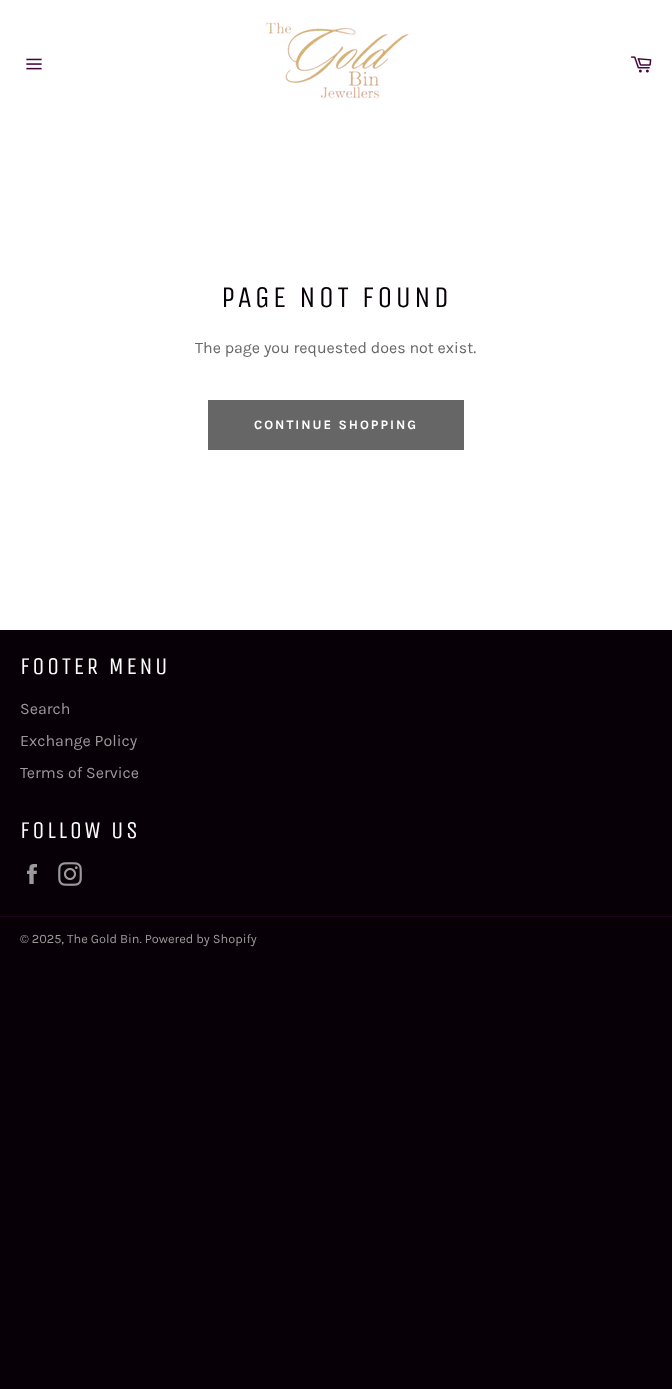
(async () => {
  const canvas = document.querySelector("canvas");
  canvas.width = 672;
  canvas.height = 1389;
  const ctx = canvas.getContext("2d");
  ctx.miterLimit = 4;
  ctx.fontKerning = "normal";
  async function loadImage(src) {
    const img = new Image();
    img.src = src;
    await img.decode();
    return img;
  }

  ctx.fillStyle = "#070006";
  ctx.fillRect(0, 0, 672, 1389);
  ctx.fillStyle = "#ffffff";
  ctx.fillRect(0, 0, 672, 630);
  ctx.drawImage(await loadImage("img/1.png"), 26, 58, 16, 12);
  ctx.drawImage(await loadImage("img/2.png"), 265, 22, 144, 77);
  ctx.drawImage(await loadImage("img/3.png"), 630, 56, 22, 17);
  ctx.fillStyle = "#666666";
  ctx.fillRect(208, 400, 256, 50);
  ctx.drawImage(await loadImage("img/4.png"), 27, 864, 10, 20);
  ctx.drawImage(await loadImage("img/5.png"), 58, 862, 24, 24);
  ctx.fillStyle = "#21001c";
  ctx.fillRect(0, 916, 672, 1);
  ctx.letterSpacing = "3px";
  ctx.font = "30px Unica One";
  ctx.fillStyle = "#070006";
  ctx.fillText("PAGE NOT FOUND", 221, 307);
  ctx.letterSpacing = "0px";
  ctx.font = "16px Karla";
  ctx.fillStyle = "#666666";
  ctx.fillText("The page you requested does not exist.", 195, 353);
  ctx.letterSpacing = "2px";
  ctx.font = "bold 13px Karla";
  ctx.fillStyle = "#ffffff";
  ctx.fillText("CONTINUE SHOPPING", 254, 429);
  ctx.letterSpacing = "2.4px";
  ctx.font = "24px Unica One";
  ctx.fillText("FOOTER MENU", 20, 674);
  ctx.letterSpacing = "0px";
  ctx.font = "16px Karla";
  ctx.fillStyle = "#9c999b";
  for (const [text, x, y] of [
    ["Search", 20, 714],
    ["Exchange Policy", 20, 746],
    ["Terms of Service", 20, 778],
  ]) {
    ctx.fillText(text, x, y);
  }
  ctx.letterSpacing = "2.4px";
  ctx.font = "24px Unica One";
  ctx.fillStyle = "#ffffff";
  ctx.fillText("FOLLOW US", 20, 838);
  ctx.letterSpacing = "0px";
  ctx.font = "12.75px Karla";
  ctx.fillStyle = "#9c999b";
  ctx.fillText("© 2025, The Gold Bin. Powered by Shopify", 20, 943);
})();
